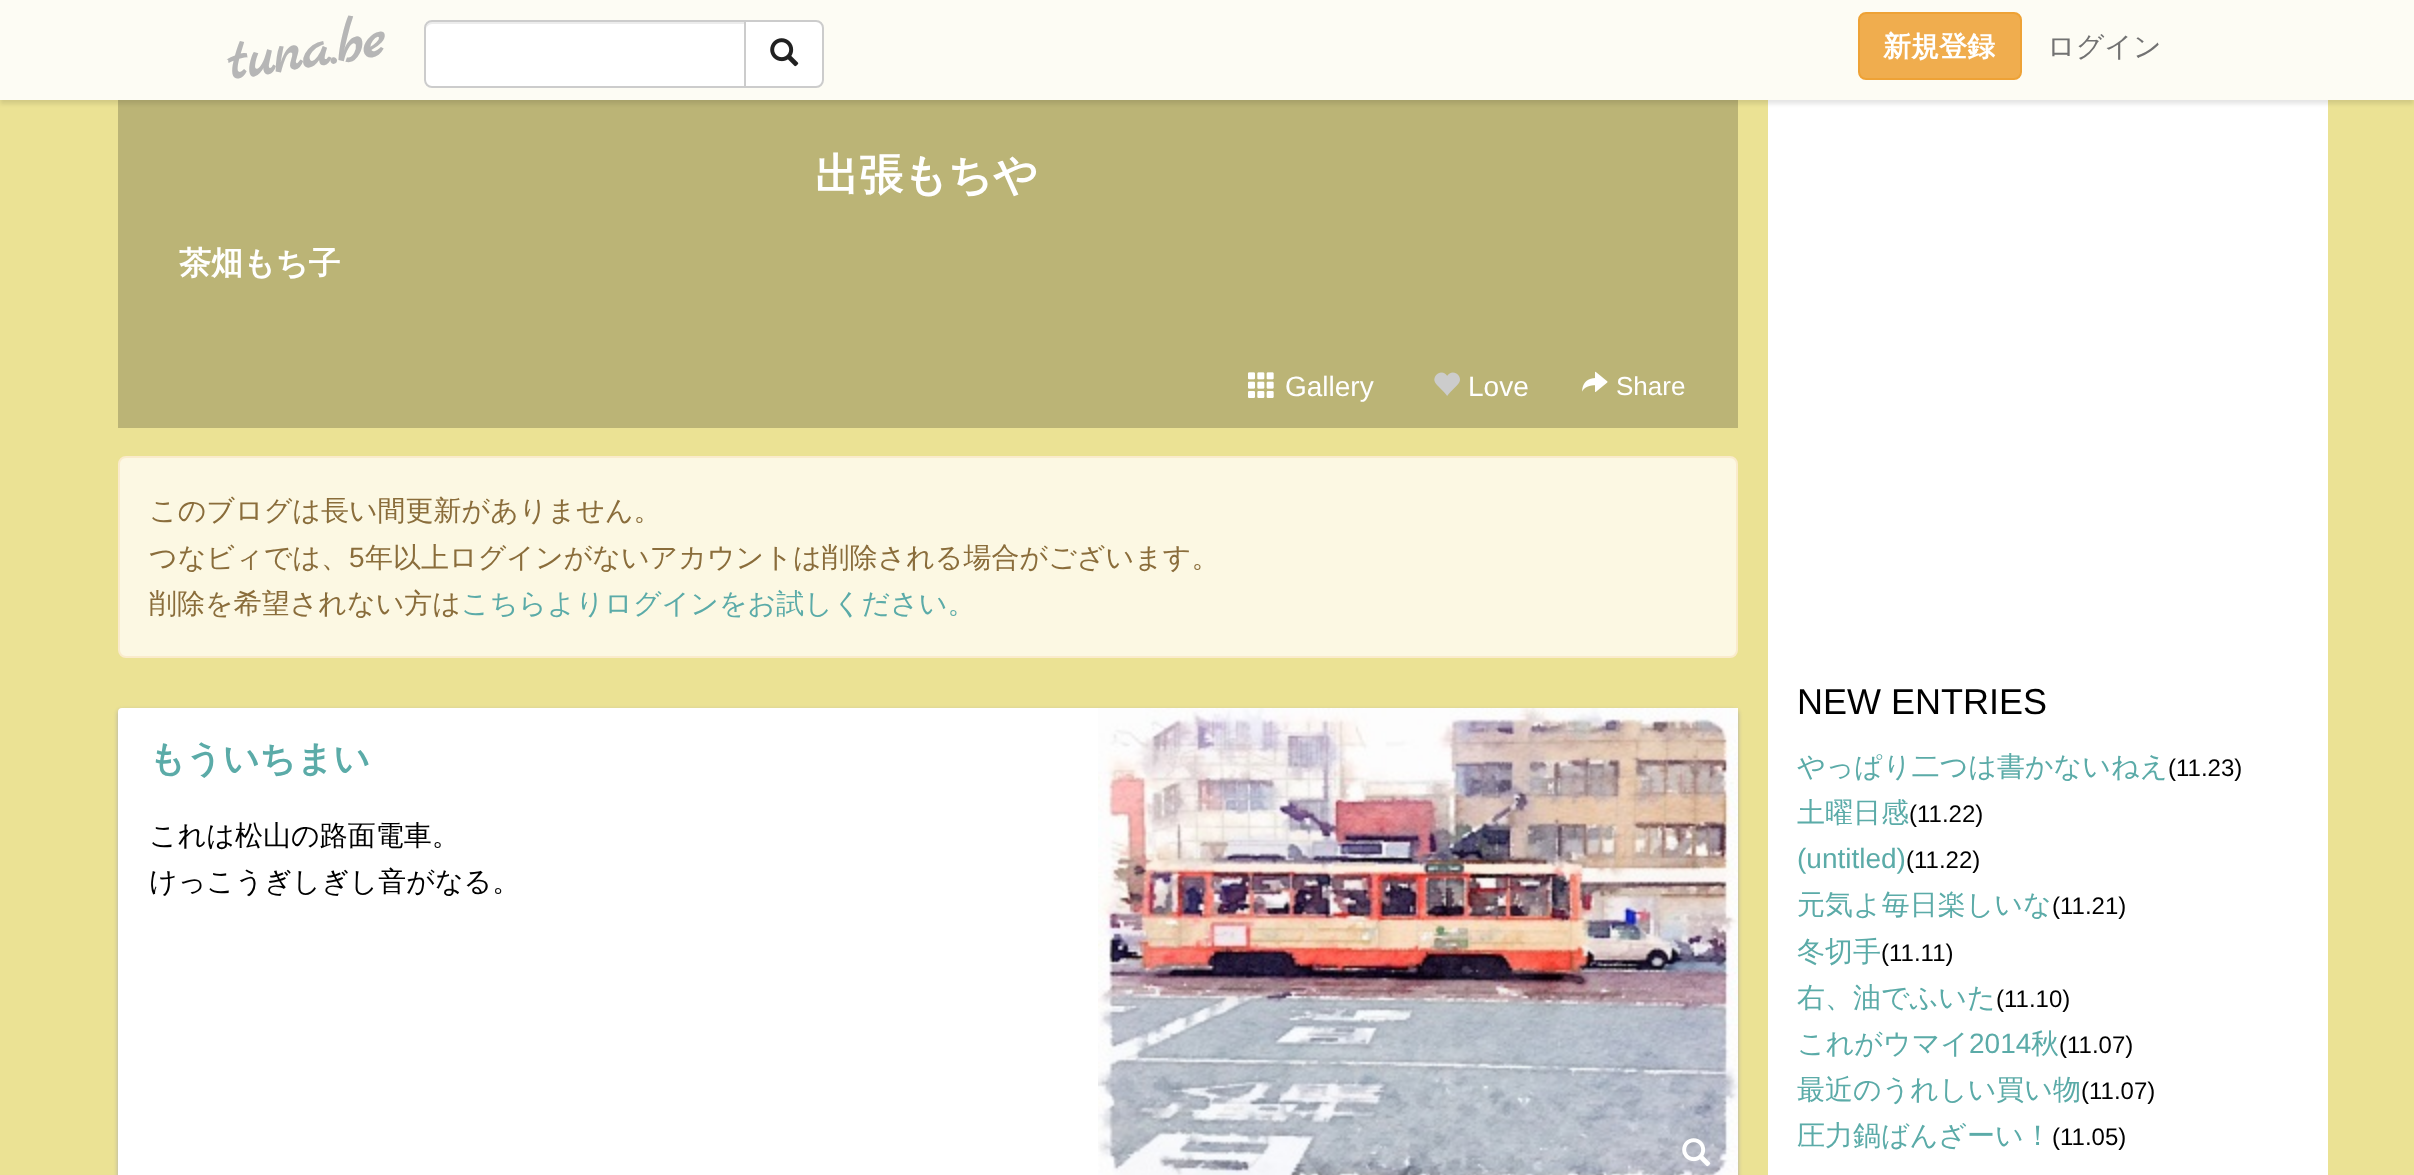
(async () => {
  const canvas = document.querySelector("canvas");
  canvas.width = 2414;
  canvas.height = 1175;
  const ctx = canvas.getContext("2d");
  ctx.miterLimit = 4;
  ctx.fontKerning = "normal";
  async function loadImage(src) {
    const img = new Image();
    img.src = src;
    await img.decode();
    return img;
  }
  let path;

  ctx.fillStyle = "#ebe294";
  ctx.fillRect(0, 0, 2414, 1175);
  ctx.fillStyle = "#bbb476";
  ctx.fillRect(118, 100, 1620, 328);
  ctx.fillStyle = "#ffffff";
  ctx.fillRect(1768, 100, 560, 1075);
  ctx.fillStyle = "rgba(0, 0, 0, 0.1)";
  ctx.filter = "blur(2px)";
  ctx.beginPath();
  ctx.rect(0, 4, 2414, 100);
  ctx.fill();
  ctx.filter = "none";
  ctx.fillStyle = "#fdfcf4";
  ctx.fillRect(0, 0, 2414, 100);
  ctx.fillStyle = "#ffffff";
  ctx.beginPath();
  ctx.roundRect(424, 20, 322, 68, [8, 0, 0, 8]);
  ctx.fill();
  ctx.fillStyle = "#ececec";
  path = new Path2D("M432 24H744V22H431C427 23 426 27 426 30C426 27 429 24 432 24Z");
  ctx.fill(path);
  ctx.beginPath();
  ctx.roundRect(425, 21, 320, 66, [7, 0, 0, 7]);
  ctx.strokeStyle = "#cccccc";
  ctx.lineWidth = 2;
  ctx.stroke();
  ctx.fillStyle = "#ffffff";
  ctx.beginPath();
  ctx.roundRect(745, 21, 78, 66, [0, 7, 7, 0]);
  ctx.fill();
  ctx.stroke();
  ctx.drawImage(await loadImage("img/1.png"), 770, 38, 29, 29);
  ctx.fillStyle = "#f0ad4e";
  ctx.beginPath();
  ctx.roundRect(1859, 13, 162, 66, 7);
  ctx.fill();
  ctx.strokeStyle = "#eea236";
  ctx.stroke();
  ctx.drawImage(await loadImage("img/2.png"), 1248, 372, 26, 26);
  ctx.drawImage(await loadImage("img/3.png"), 1434, 372, 26, 24);
  ctx.drawImage(await loadImage("img/4.png"), 1582, 371, 26, 21);
  ctx.fillStyle = "#fcf8e3";
  ctx.beginPath();
  ctx.roundRect(119, 457, 1618, 200, 7);
  ctx.fill();
  ctx.strokeStyle = "#faebcc";
  ctx.stroke();
  ctx.fillStyle = "#aaaaaa";
  ctx.filter = "blur(2px)";
  ctx.beginPath();
  ctx.roundRect(118, 710, 1620, 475, 4);
  ctx.fill();
  ctx.filter = "none";
  ctx.fillStyle = "#ffffff";
  ctx.beginPath();
  ctx.roundRect(118, 708, 1620, 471, 4);
  ctx.fill();
  ctx.drawImage(await loadImage("img/5.png"), 1098, 708, 640, 467);
  ctx.drawImage(await loadImage("img/6.png"), 1682, 1138, 29, 29);
  ctx.font = "bold 60px Marck Script";
  ctx.fillStyle = "#b6b6b6";
  ctx.save();
  ctx.translate(230, 80);
  ctx.rotate(-9 * Math.PI / 180);
  ctx.fillText("tuna.be", 0, 0);
  ctx.restore();
  ctx.font = "bold 28px WenQuanYi Zen Hei";
  ctx.fillStyle = "#ffffff";
  ctx.fillText("新規登録", 1883, 56);
  ctx.font = "500 28px WenQuanYi Zen Hei";
  ctx.fillStyle = "#727272";
  ctx.fillText("ログイン", 2047, 56);
  ctx.font = "bold 44px WenQuanYi Zen Hei";
  ctx.fillStyle = "#ffffff";
  ctx.fillText("出張もちや", 815, 190);
  ctx.font = "bold 32px WenQuanYi Zen Hei";
  ctx.fillText("茶畑もち子", 179, 274);
  ctx.font = "28px Liberation Sans";
  ctx.fillText("Gallery", 1285, 396);
  ctx.fillText("Love", 1468, 396);
  ctx.font = "26px Liberation Sans";
  ctx.fillText("Share", 1616, 395);
  ctx.font = "500 28px WenQuanYi Zen Hei";
  ctx.fillStyle = "#8a6d3b";
  ctx.fillText("このブログは長い間更新がありません。", 149, 520);
  ctx.fillText("つなビィでは、", 149, 567);
  ctx.font = "28px Liberation Sans";
  ctx.fillText("5", 349, 567);
  ctx.font = "500 28px WenQuanYi Zen Hei";
  ctx.fillText("年以上ログインがないアカウントは削除される場合がございます。", 365, 567);
  ctx.fillText("削除を希望されない方は", 149, 613);
  ctx.fillStyle = "#5baba8";
  ctx.fillText("こちらよりログインをお試しください。", 461, 613);
  ctx.font = "bold 36px WenQuanYi Zen Hei";
  ctx.fillText("もういちまい", 149, 771);
  ctx.font = "500 28px WenQuanYi Zen Hei";
  ctx.fillStyle = "#000000";
  ctx.fillText("これは松山の路面電車。", 149, 845);
  ctx.fillText("けっこうぎしぎし音がなる。", 149, 891);
  ctx.font = "36px Liberation Sans";
  ctx.fillText("NEW ENTRIES", 1797, 714);
  ctx.font = "500 28px WenQuanYi Zen Hei";
  ctx.fillStyle = "#5baba8";
  ctx.fillText("やっぱり二つは書かないねえ", 1797, 776);
  ctx.font = "24px Liberation Sans";
  ctx.fillStyle = "#000000";
  ctx.fillText("(11.23)", 2168, 776);
  ctx.font = "500 28px WenQuanYi Zen Hei";
  ctx.fillStyle = "#5baba8";
  ctx.fillText("土曜日感", 1797, 822);
  ctx.font = "24px Liberation Sans";
  ctx.fillStyle = "#000000";
  ctx.fillText("(11.22)", 1909, 822);
  ctx.font = "28px Liberation Sans";
  ctx.fillStyle = "#5baba8";
  ctx.fillText("(untitled)", 1797, 868);
  ctx.font = "24px Liberation Sans";
  ctx.fillStyle = "#000000";
  ctx.fillText("(11.22)", 1906, 868);
  ctx.font = "500 28px WenQuanYi Zen Hei";
  ctx.fillStyle = "#5baba8";
  ctx.fillText("元気よ毎日楽しいな", 1797, 914);
  ctx.font = "24px Liberation Sans";
  ctx.fillStyle = "#000000";
  ctx.fillText("(11.21)", 2052, 914);
  ctx.font = "500 28px WenQuanYi Zen Hei";
  ctx.fillStyle = "#5baba8";
  ctx.fillText("冬切手", 1797, 961);
  ctx.font = "24px Liberation Sans";
  ctx.fillStyle = "#000000";
  ctx.fillText("(11.11)", 1881, 961);
  ctx.font = "500 28px WenQuanYi Zen Hei";
  ctx.fillStyle = "#5baba8";
  ctx.fillText("右、油でふいた", 1797, 1007);
  ctx.font = "24px Liberation Sans";
  ctx.fillStyle = "#000000";
  ctx.fillText("(11.10)", 1996, 1007);
  ctx.font = "500 28px WenQuanYi Zen Hei";
  ctx.fillStyle = "#5baba8";
  ctx.fillText("これがウマイ", 1797, 1053);
  ctx.font = "28px Liberation Sans";
  ctx.fillText("2014", 1969, 1053);
  ctx.font = "500 28px WenQuanYi Zen Hei";
  ctx.fillText("秋", 2031, 1053);
  ctx.font = "24px Liberation Sans";
  ctx.fillStyle = "#000000";
  ctx.fillText("(11.07)", 2059, 1053);
  ctx.font = "500 28px WenQuanYi Zen Hei";
  ctx.fillStyle = "#5baba8";
  ctx.fillText("最近のうれしい買い物", 1797, 1099);
  ctx.font = "24px Liberation Sans";
  ctx.fillStyle = "#000000";
  ctx.fillText("(11.07)", 2081, 1099);
  ctx.font = "500 28px WenQuanYi Zen Hei";
  ctx.fillStyle = "#5baba8";
  ctx.fillText("圧力鍋ばんざーい！", 1797, 1145);
  ctx.font = "24px Liberation Sans";
  ctx.fillStyle = "#000000";
  ctx.fillText("(11.05)", 2052, 1145);
})();
